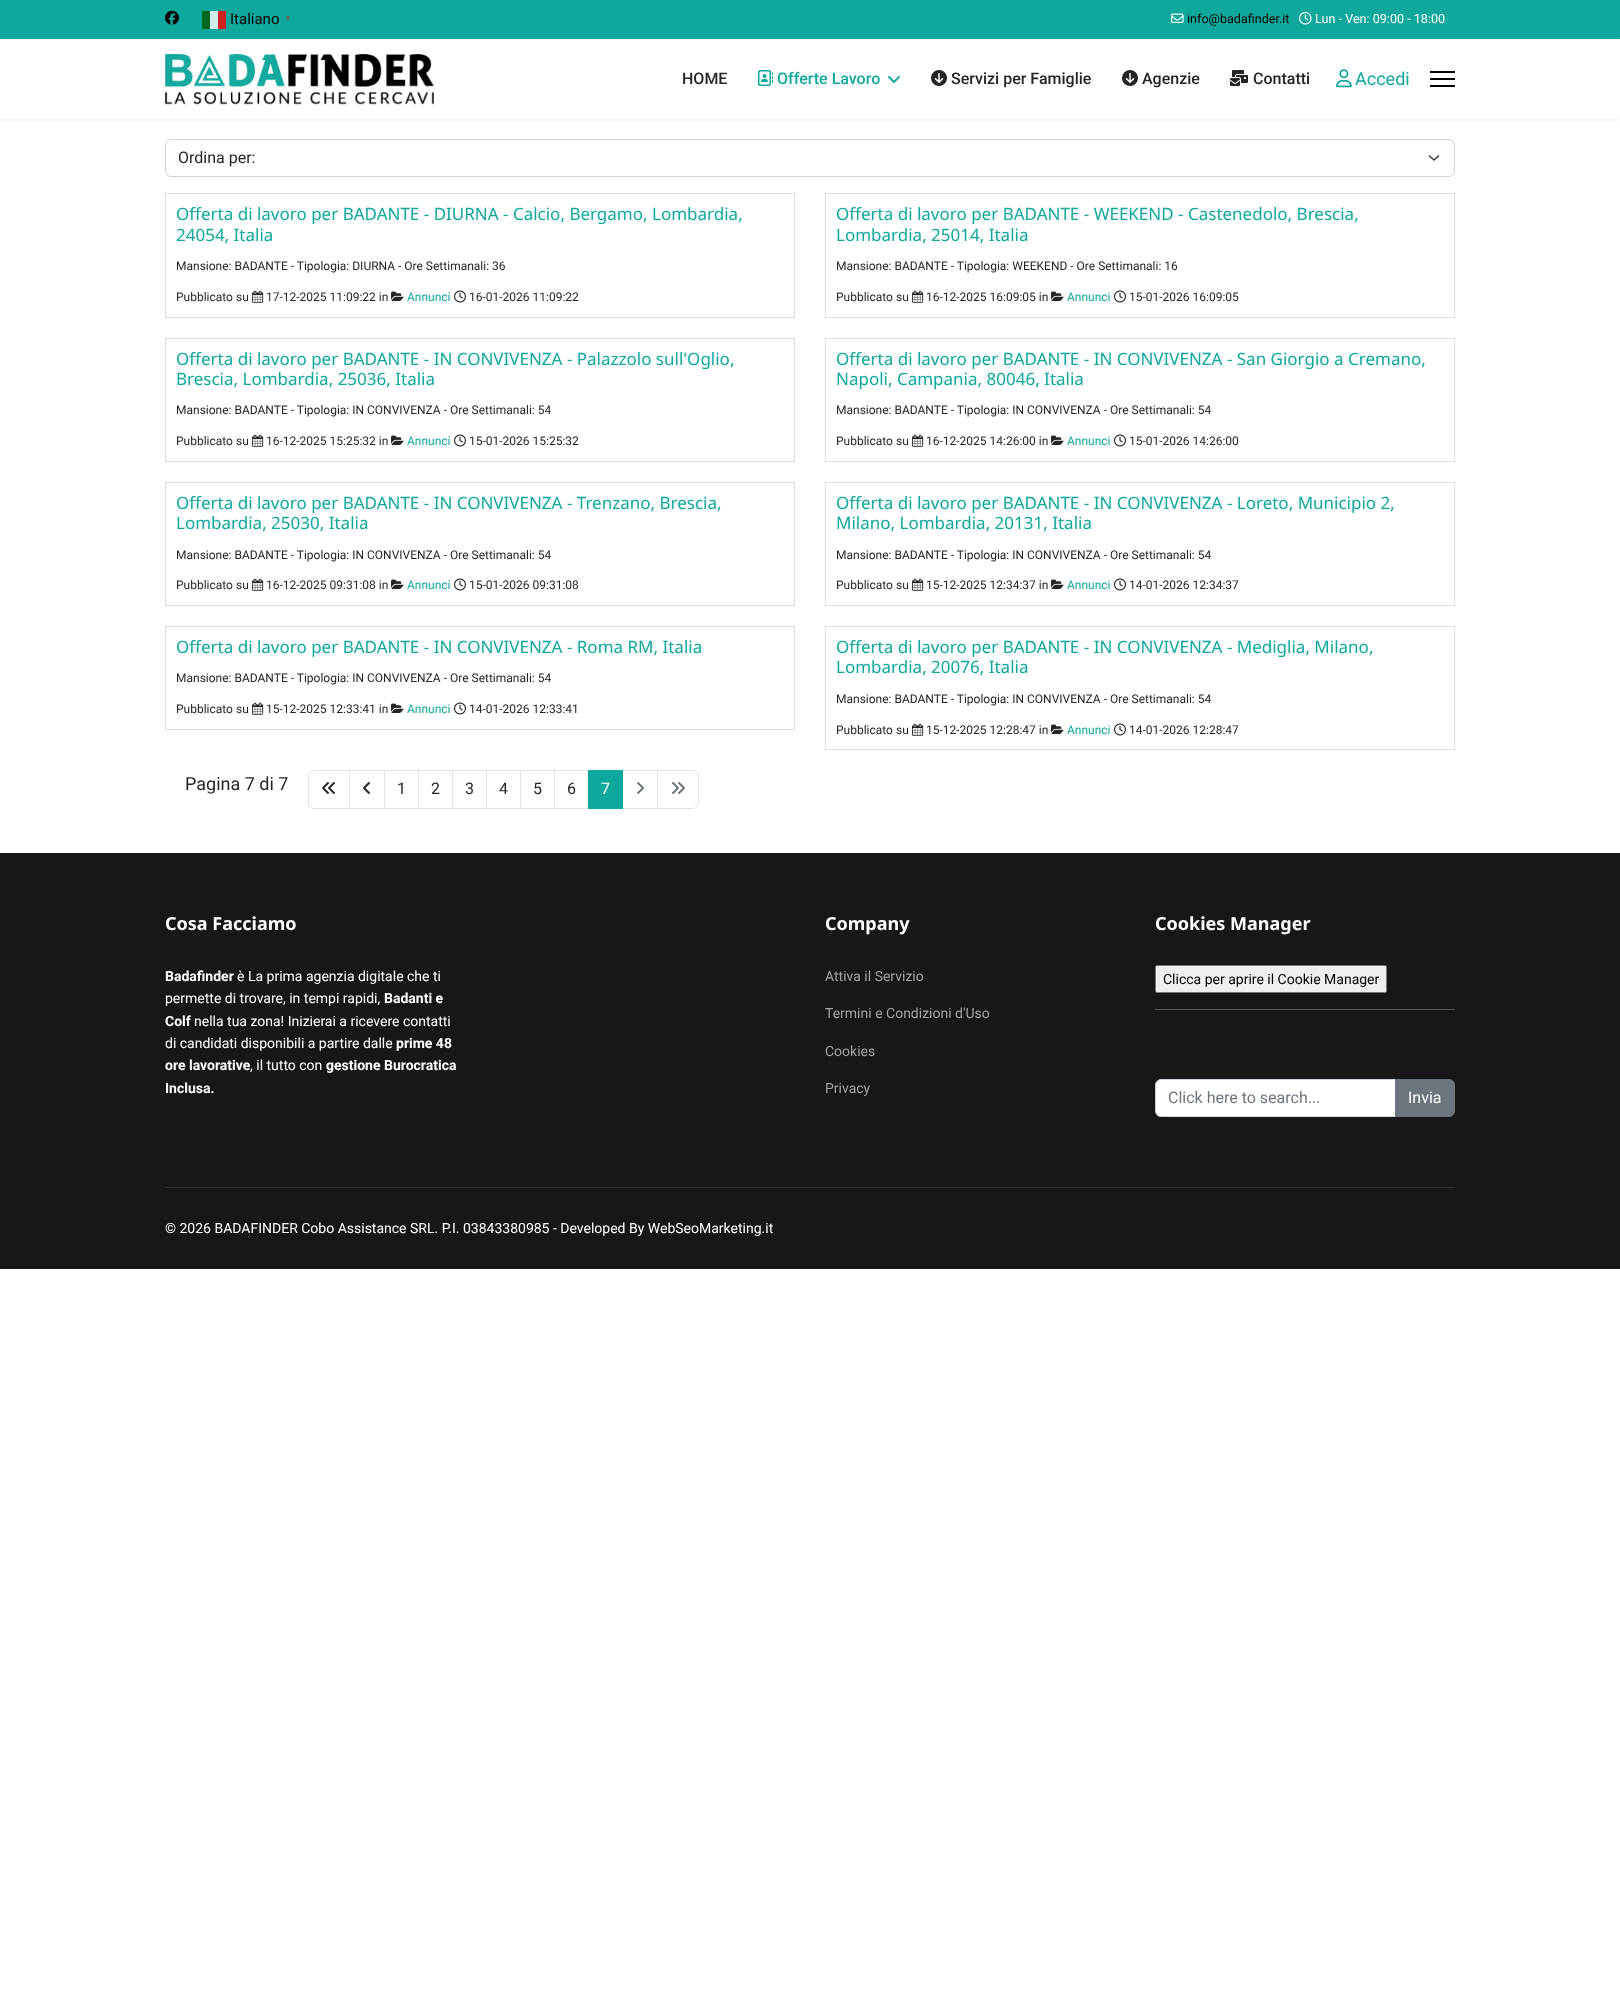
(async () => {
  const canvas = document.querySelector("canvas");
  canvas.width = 1620;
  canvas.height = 2010;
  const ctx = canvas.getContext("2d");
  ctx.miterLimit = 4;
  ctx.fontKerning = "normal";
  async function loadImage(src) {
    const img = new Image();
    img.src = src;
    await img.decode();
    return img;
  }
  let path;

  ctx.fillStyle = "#ffffff";
  ctx.fillRect(0, 0, 1620, 2010);
  ctx.fillStyle = "#0fa89d";
  ctx.fillRect(0, 0, 1620, 39);
  ctx.drawImage(await loadImage("img/1.png"), 165, 10, 14, 15);
  for (const [x, y, w, h, color] of [
    [210, 11, 8, 18, "#cfeeeb"],
    [202, 11, 8, 18, "#03671f"],
    [218, 11, 8, 18, "#cd221f"],
  ]) {
    ctx.fillStyle = color;
    ctx.fillRect(x, y, w, h);
  }
  ctx.drawImage(await loadImage("img/2.png"), 1171, 13, 13, 10);
  ctx.drawImage(await loadImage("img/3.png"), 1299, 12, 13, 13);
  ctx.save();
  path = new Path2D("M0 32H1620V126H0ZM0 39H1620V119H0Z");
  ctx.clip(path, "evenodd");
  ctx.fillStyle = "rgba(0, 0, 0, 0.1)";
  ctx.filter = "blur(2px)";
  ctx.beginPath();
  ctx.rect(0, 39, 1620, 80);
  ctx.fill();
  ctx.filter = "none";
  ctx.restore();
  ctx.drawImage(await loadImage("img/4.png"), 165, 54, 269, 51);
  ctx.drawImage(await loadImage("img/5.png"), 758, 70, 15, 16);
  ctx.drawImage(await loadImage("img/6.png"), 888, 76, 12, 7);
  ctx.drawImage(await loadImage("img/7.png"), 931, 70, 16, 16);
  ctx.drawImage(await loadImage("img/7.png"), 1122, 70, 16, 16);
  ctx.drawImage(await loadImage("img/8.png"), 1230, 70, 18, 16);
  ctx.drawImage(await loadImage("img/9.png"), 1336, 69, 16, 19);
  for (const [x, y, w, h, color] of [
    [1430, 71, 25, 2, "#000000"],
    [1430, 78, 25, 2, "#000000"],
    [1430, 85, 25, 2, "#000000"],
  ]) {
    ctx.fillStyle = color;
    ctx.fillRect(x, y, w, h);
  }
  path = new Path2D("M1429.5 156L1434 160L1438.5 156");
  ctx.strokeStyle = "#343a40";
  ctx.lineWidth = 1.5;
  ctx.lineCap = "round";
  ctx.lineJoin = "round";
  ctx.stroke(path);
  ctx.beginPath();
  ctx.roundRect(165.5, 139.5, 1289, 37, 5.5);
  ctx.strokeStyle = "#ced4da";
  ctx.lineWidth = 1;
  ctx.lineJoin = "miter";
  ctx.stroke();
  ctx.strokeStyle = "#dddddd";
  ctx.strokeRect(165.5, 193.5, 629, 124);
  ctx.drawImage(await loadImage("img/10.png"), 252, 290, 12, 13);
  ctx.drawImage(await loadImage("img/11.png"), 391, 291, 13, 10);
  ctx.drawImage(await loadImage("img/12.png"), 454, 290, 12, 13);
  ctx.strokeRect(825.5, 193.5, 629, 124);
  ctx.drawImage(await loadImage("img/10.png"), 912, 290, 12, 13);
  ctx.drawImage(await loadImage("img/11.png"), 1051, 291, 13, 10);
  ctx.drawImage(await loadImage("img/12.png"), 1114, 290, 12, 13);
  ctx.strokeRect(165.5, 338.5, 629, 123);
  ctx.drawImage(await loadImage("img/10.png"), 252, 434, 12, 13);
  ctx.drawImage(await loadImage("img/11.png"), 391, 435, 13, 10);
  ctx.drawImage(await loadImage("img/12.png"), 454, 434, 12, 13);
  ctx.strokeRect(825.5, 338.5, 629, 123);
  ctx.drawImage(await loadImage("img/10.png"), 912, 434, 12, 13);
  ctx.drawImage(await loadImage("img/11.png"), 1051, 435, 13, 10);
  ctx.drawImage(await loadImage("img/12.png"), 1114, 434, 12, 13);
  ctx.strokeRect(165.5, 482.5, 629, 123);
  ctx.drawImage(await loadImage("img/10.png"), 252, 578, 12, 13);
  ctx.drawImage(await loadImage("img/11.png"), 391, 579, 13, 10);
  ctx.drawImage(await loadImage("img/12.png"), 454, 578, 12, 13);
  ctx.strokeRect(825.5, 482.5, 629, 123);
  ctx.drawImage(await loadImage("img/10.png"), 912, 578, 12, 13);
  ctx.drawImage(await loadImage("img/11.png"), 1051, 579, 13, 10);
  ctx.drawImage(await loadImage("img/12.png"), 1114, 578, 12, 13);
  ctx.strokeRect(165.5, 626.5, 629, 103);
  ctx.drawImage(await loadImage("img/10.png"), 252, 702, 12, 13);
  ctx.drawImage(await loadImage("img/11.png"), 391, 703, 13, 10);
  ctx.drawImage(await loadImage("img/12.png"), 454, 702, 12, 13);
  ctx.strokeRect(825.5, 626.5, 629, 123);
  ctx.drawImage(await loadImage("img/10.png"), 912, 723, 12, 13);
  ctx.drawImage(await loadImage("img/11.png"), 1051, 724, 13, 10);
  ctx.drawImage(await loadImage("img/12.png"), 1114, 723, 12, 13);
  ctx.beginPath();
  ctx.roundRect(308.5, 770.5, 41, 38, [5.5, 0, 0, 5.5]);
  ctx.strokeStyle = "#dee2e6";
  ctx.stroke();
  ctx.drawImage(await loadImage("img/13.png"), 322, 782, 13, 12);
  ctx.strokeRect(349.5, 770.5, 35, 38);
  ctx.drawImage(await loadImage("img/14.png"), 363, 782, 7, 12);
  ctx.strokeRect(384.5, 770.5, 34, 38);
  ctx.strokeRect(418.5, 770.5, 34, 38);
  ctx.strokeRect(452.5, 770.5, 34, 38);
  ctx.strokeRect(486.5, 770.5, 34, 38);
  ctx.strokeRect(520.5, 770.5, 34, 38);
  ctx.strokeRect(554.5, 770.5, 34, 38);
  ctx.strokeRect(622.5, 770.5, 35, 38);
  ctx.fillStyle = "#0fa89d";
  ctx.fillRect(588, 770, 35, 39);
  ctx.drawImage(await loadImage("img/15.png"), 637, 782, 7, 12);
  ctx.fillStyle = "#ffffff";
  ctx.beginPath();
  ctx.roundRect(657.5, 770.5, 41, 38, [0, 5.5, 5.5, 0]);
  ctx.fill();
  ctx.stroke();
  ctx.drawImage(await loadImage("img/16.png"), 672, 782, 13, 12);
  ctx.fillStyle = "#171717";
  ctx.fillRect(0, 853, 1620, 416);
  ctx.fillStyle = "#efefef";
  ctx.beginPath();
  ctx.roundRect(1155.5, 965.5, 231, 27, 1.5);
  ctx.fill();
  ctx.strokeStyle = "#767676";
  ctx.stroke();
  ctx.fillStyle = "#515151";
  ctx.fillRect(1155, 1009, 300, 1);
  ctx.fillStyle = "#ffffff";
  ctx.beginPath();
  ctx.roundRect(1155.5, 1079.5, 240, 37, [5.5, 0, 0, 5.5]);
  ctx.fill();
  ctx.strokeStyle = "#ced4da";
  ctx.stroke();
  ctx.fillStyle = "#6c757d";
  ctx.beginPath();
  ctx.roundRect(1395.5, 1079.5, 59, 37, [0, 5.5, 5.5, 0]);
  ctx.fill();
  ctx.strokeStyle = "#6c757d";
  ctx.stroke();
  ctx.fillStyle = "#2e2e2e";
  ctx.fillRect(165, 1187, 1290, 1);
  ctx.font = "15px Roboto";
  ctx.fillStyle = "#000000";
  ctx.fillText("Italiano", 230, 24);
  ctx.font = "bold 8px Liberation Sans";
  ctx.fillStyle = "#666666";
  ctx.fillText("▼", 284, 21);
  ctx.font = "12.6px Roboto";
  ctx.fillStyle = "#000000";
  ctx.fillText("info@badafinder.it", 1187, 23);
  ctx.fillStyle = "#ffffff";
  ctx.fillText("Lun - Ven: 09:00 - 18:00", 1315, 23);
  ctx.font = "500 16px Roboto";
  ctx.fillStyle = "#252525";
  ctx.fillText("HOME", 682, 84);
  ctx.fillStyle = "#0fa89d";
  ctx.fillText("Offerte Lavoro", 777, 84);
  ctx.fillStyle = "#252525";
  for (const [text, x, y] of [
    ["Servizi per Famiglie", 951, 84],
    ["Agenzie", 1142, 84],
    ["Contatti", 1253, 84],
  ]) {
    ctx.fillText(text, x, y);
  }
  ctx.font = "18px Roboto";
  ctx.fillStyle = "#0fa89d";
  ctx.fillText("Accedi", 1355, 85);
  ctx.font = "16px Roboto";
  ctx.fillStyle = "#252525";
  ctx.fillText("Ordina per:", 178, 163);
  ctx.font = "17px Noto Sans";
  ctx.fillStyle = "#0fa89d";
  ctx.fillText("Offerta di lavoro per BADANTE - DIURNA - Calcio, Bergamo, Lombardia,", 176, 220);
  ctx.fillText("24054, Italia", 176, 241);
  ctx.font = "12px Roboto";
  ctx.fillStyle = "#252525";
  for (const [text, x, y] of [
    ["Mansione: BADANTE - Tipologia: DIURNA - Ore Settimanali: 36", 176, 270],
    ["Pubblicato su", 176, 301],
    ["17-12-2025 11:09:22 in", 266, 301],
  ]) {
    ctx.fillText(text, x, y);
  }
  ctx.fillStyle = "#0fa89d";
  ctx.fillText("Annunci", 407, 301);
  ctx.fillStyle = "#252525";
  ctx.fillText("16-01-2026 11:09:22", 469, 301);
  ctx.font = "17px Noto Sans";
  ctx.fillStyle = "#0fa89d";
  ctx.fillText("Offerta di lavoro per BADANTE - WEEKEND - Castenedolo, Brescia,", 836, 220);
  ctx.fillText("Lombardia, 25014, Italia", 836, 241);
  ctx.font = "12px Roboto";
  ctx.fillStyle = "#252525";
  for (const [text, x, y] of [
    ["Mansione: BADANTE - Tipologia: WEEKEND - Ore Settimanali: 16", 836, 270],
    ["Pubblicato su", 836, 301],
    ["16-12-2025 16:09:05 in", 926, 301],
  ]) {
    ctx.fillText(text, x, y);
  }
  ctx.fillStyle = "#0fa89d";
  ctx.fillText("Annunci", 1067, 301);
  ctx.fillStyle = "#252525";
  ctx.fillText("15-01-2026 16:09:05", 1129, 301);
  ctx.font = "17px Noto Sans";
  ctx.fillStyle = "#0fa89d";
  ctx.fillText("Offerta di lavoro per BADANTE - IN CONVIVENZA - Palazzolo sull'Oglio,", 176, 365);
  ctx.fillText("Brescia, Lombardia, 25036, Italia", 176, 385);
  ctx.font = "12px Roboto";
  ctx.fillStyle = "#252525";
  for (const [text, x, y] of [
    ["Mansione: BADANTE - Tipologia: IN CONVIVENZA - Ore Settimanali: 54", 176, 414],
    ["Pubblicato su", 176, 445],
    ["16-12-2025 15:25:32 in", 266, 445],
  ]) {
    ctx.fillText(text, x, y);
  }
  ctx.fillStyle = "#0fa89d";
  ctx.fillText("Annunci", 407, 445);
  ctx.fillStyle = "#252525";
  ctx.fillText("15-01-2026 15:25:32", 469, 445);
  ctx.font = "17px Noto Sans";
  ctx.fillStyle = "#0fa89d";
  ctx.fillText("Offerta di lavoro per BADANTE - IN CONVIVENZA - San Giorgio a Cremano,", 836, 365);
  ctx.fillText("Napoli, Campania, 80046, Italia", 836, 385);
  ctx.font = "12px Roboto";
  ctx.fillStyle = "#252525";
  for (const [text, x, y] of [
    ["Mansione: BADANTE - Tipologia: IN CONVIVENZA - Ore Settimanali: 54", 836, 414],
    ["Pubblicato su", 836, 445],
    ["16-12-2025 14:26:00 in", 926, 445],
  ]) {
    ctx.fillText(text, x, y);
  }
  ctx.fillStyle = "#0fa89d";
  ctx.fillText("Annunci", 1067, 445);
  ctx.fillStyle = "#252525";
  ctx.fillText("15-01-2026 14:26:00", 1129, 445);
  ctx.font = "17px Noto Sans";
  ctx.fillStyle = "#0fa89d";
  ctx.fillText("Offerta di lavoro per BADANTE - IN CONVIVENZA - Trenzano, Brescia,", 176, 509);
  ctx.fillText("Lombardia, 25030, Italia", 176, 529);
  ctx.font = "12px Roboto";
  ctx.fillStyle = "#252525";
  for (const [text, x, y] of [
    ["Mansione: BADANTE - Tipologia: IN CONVIVENZA - Ore Settimanali: 54", 176, 559],
    ["Pubblicato su", 176, 589],
    ["16-12-2025 09:31:08 in", 266, 589],
  ]) {
    ctx.fillText(text, x, y);
  }
  ctx.fillStyle = "#0fa89d";
  ctx.fillText("Annunci", 407, 589);
  ctx.fillStyle = "#252525";
  ctx.fillText("15-01-2026 09:31:08", 469, 589);
  ctx.font = "17px Noto Sans";
  ctx.fillStyle = "#0fa89d";
  ctx.fillText("Offerta di lavoro per BADANTE - IN CONVIVENZA - Loreto, Municipio 2,", 836, 509);
  ctx.fillText("Milano, Lombardia, 20131, Italia", 836, 529);
  ctx.font = "12px Roboto";
  ctx.fillStyle = "#252525";
  for (const [text, x, y] of [
    ["Mansione: BADANTE - Tipologia: IN CONVIVENZA - Ore Settimanali: 54", 836, 559],
    ["Pubblicato su", 836, 589],
    ["15-12-2025 12:34:37 in", 926, 589],
  ]) {
    ctx.fillText(text, x, y);
  }
  ctx.fillStyle = "#0fa89d";
  ctx.fillText("Annunci", 1067, 589);
  ctx.fillStyle = "#252525";
  ctx.fillText("14-01-2026 12:34:37", 1129, 589);
  ctx.font = "17px Noto Sans";
  ctx.fillStyle = "#0fa89d";
  ctx.fillText("Offerta di lavoro per BADANTE - IN CONVIVENZA - Roma RM, Italia", 176, 653);
  ctx.font = "12px Roboto";
  ctx.fillStyle = "#252525";
  for (const [text, x, y] of [
    ["Mansione: BADANTE - Tipologia: IN CONVIVENZA - Ore Settimanali: 54", 176, 682],
    ["Pubblicato su", 176, 713],
    ["15-12-2025 12:33:41 in", 266, 713],
  ]) {
    ctx.fillText(text, x, y);
  }
  ctx.fillStyle = "#0fa89d";
  ctx.fillText("Annunci", 407, 713);
  ctx.fillStyle = "#252525";
  ctx.fillText("14-01-2026 12:33:41", 469, 713);
  ctx.font = "17px Noto Sans";
  ctx.fillStyle = "#0fa89d";
  ctx.fillText("Offerta di lavoro per BADANTE - IN CONVIVENZA - Mediglia, Milano,", 836, 653);
  ctx.fillText("Lombardia, 20076, Italia", 836, 673);
  ctx.font = "12px Roboto";
  ctx.fillStyle = "#252525";
  for (const [text, x, y] of [
    ["Mansione: BADANTE - Tipologia: IN CONVIVENZA - Ore Settimanali: 54", 836, 703],
    ["Pubblicato su", 836, 734],
    ["15-12-2025 12:28:47 in", 926, 734],
  ]) {
    ctx.fillText(text, x, y);
  }
  ctx.fillStyle = "#0fa89d";
  ctx.fillText("Annunci", 1067, 734);
  ctx.fillStyle = "#252525";
  ctx.fillText("14-01-2026 12:28:47", 1129, 734);
  ctx.font = "18px Roboto";
  ctx.fillText("Pagina 7 di 7", 185, 790);
  ctx.font = "16px Roboto";
  for (const [text, x, y] of [
    ["1", 397, 794],
    ["2", 431, 794],
    ["3", 465, 794],
    ["4", 499, 794],
    ["5", 533, 794],
    ["6", 567, 794],
  ]) {
    ctx.fillText(text, x, y);
  }
  ctx.fillStyle = "#ffffff";
  ctx.fillText("7", 601, 794);
  ctx.font = "bold 18px Noto Sans";
  ctx.fillText("Cosa Facciamo", 165, 930);
  ctx.font = "bold 14px Roboto";
  ctx.fillText("Badafinder", 165, 981);
  ctx.font = "14px Roboto";
  ctx.fillText("è La prima agenzia digitale che ti", 237, 981);
  ctx.fillText("permette di trovare, in tempi rapidi,", 165, 1003);
  ctx.font = "bold 14px Roboto";
  ctx.fillText("Badanti e", 384, 1003);
  ctx.fillText("Colf", 165, 1026);
  ctx.font = "14px Roboto";
  ctx.fillText("nella tua zona! Inizierai a ricevere contatti", 194, 1026);
  ctx.fillText("di candidati disponibili a partire dalle", 165, 1048);
  ctx.font = "bold 14px Roboto";
  ctx.fillText("prime 48", 396, 1048);
  ctx.fillText("ore lavorative", 165, 1070);
  ctx.font = "14px Roboto";
  ctx.fillText(", il tutto con", 250, 1070);
  ctx.font = "bold 14px Roboto";
  ctx.fillText("gestione Burocratica", 326, 1070);
  ctx.fillText("Inclusa.", 165, 1093);
  ctx.font = "bold 18px Noto Sans";
  ctx.fillText("Company", 825, 930);
  ctx.font = "14px Roboto";
  ctx.fillStyle = "#a2a2a2";
  for (const [text, x, y] of [
    ["Attiva il Servizio", 825, 981],
    ["Termini e Condizioni d'Uso", 825, 1018],
    ["Cookies", 825, 1056],
    ["Privacy", 825, 1093],
  ]) {
    ctx.fillText(text, x, y);
  }
  ctx.font = "bold 18px Noto Sans";
  ctx.fillStyle = "#ffffff";
  ctx.fillText("Cookies Manager", 1155, 930);
  ctx.font = "14px Roboto";
  ctx.fillStyle = "#000000";
  ctx.fillText("Clicca per aprire il Cookie Manager", 1163, 984);
  ctx.font = "16px Roboto";
  ctx.fillStyle = "#6c757d";
  ctx.fillText("Click here to search...", 1168, 1103);
  ctx.fillStyle = "#ffffff";
  ctx.fillText("Invia", 1408, 1103);
  ctx.font = "14px Roboto";
  ctx.fillText("© 2026 BADAFINDER Cobo Assistance SRL. P.I. 03843380985 - Developed By WebSeoMarketing.it", 165, 1233);
})();
